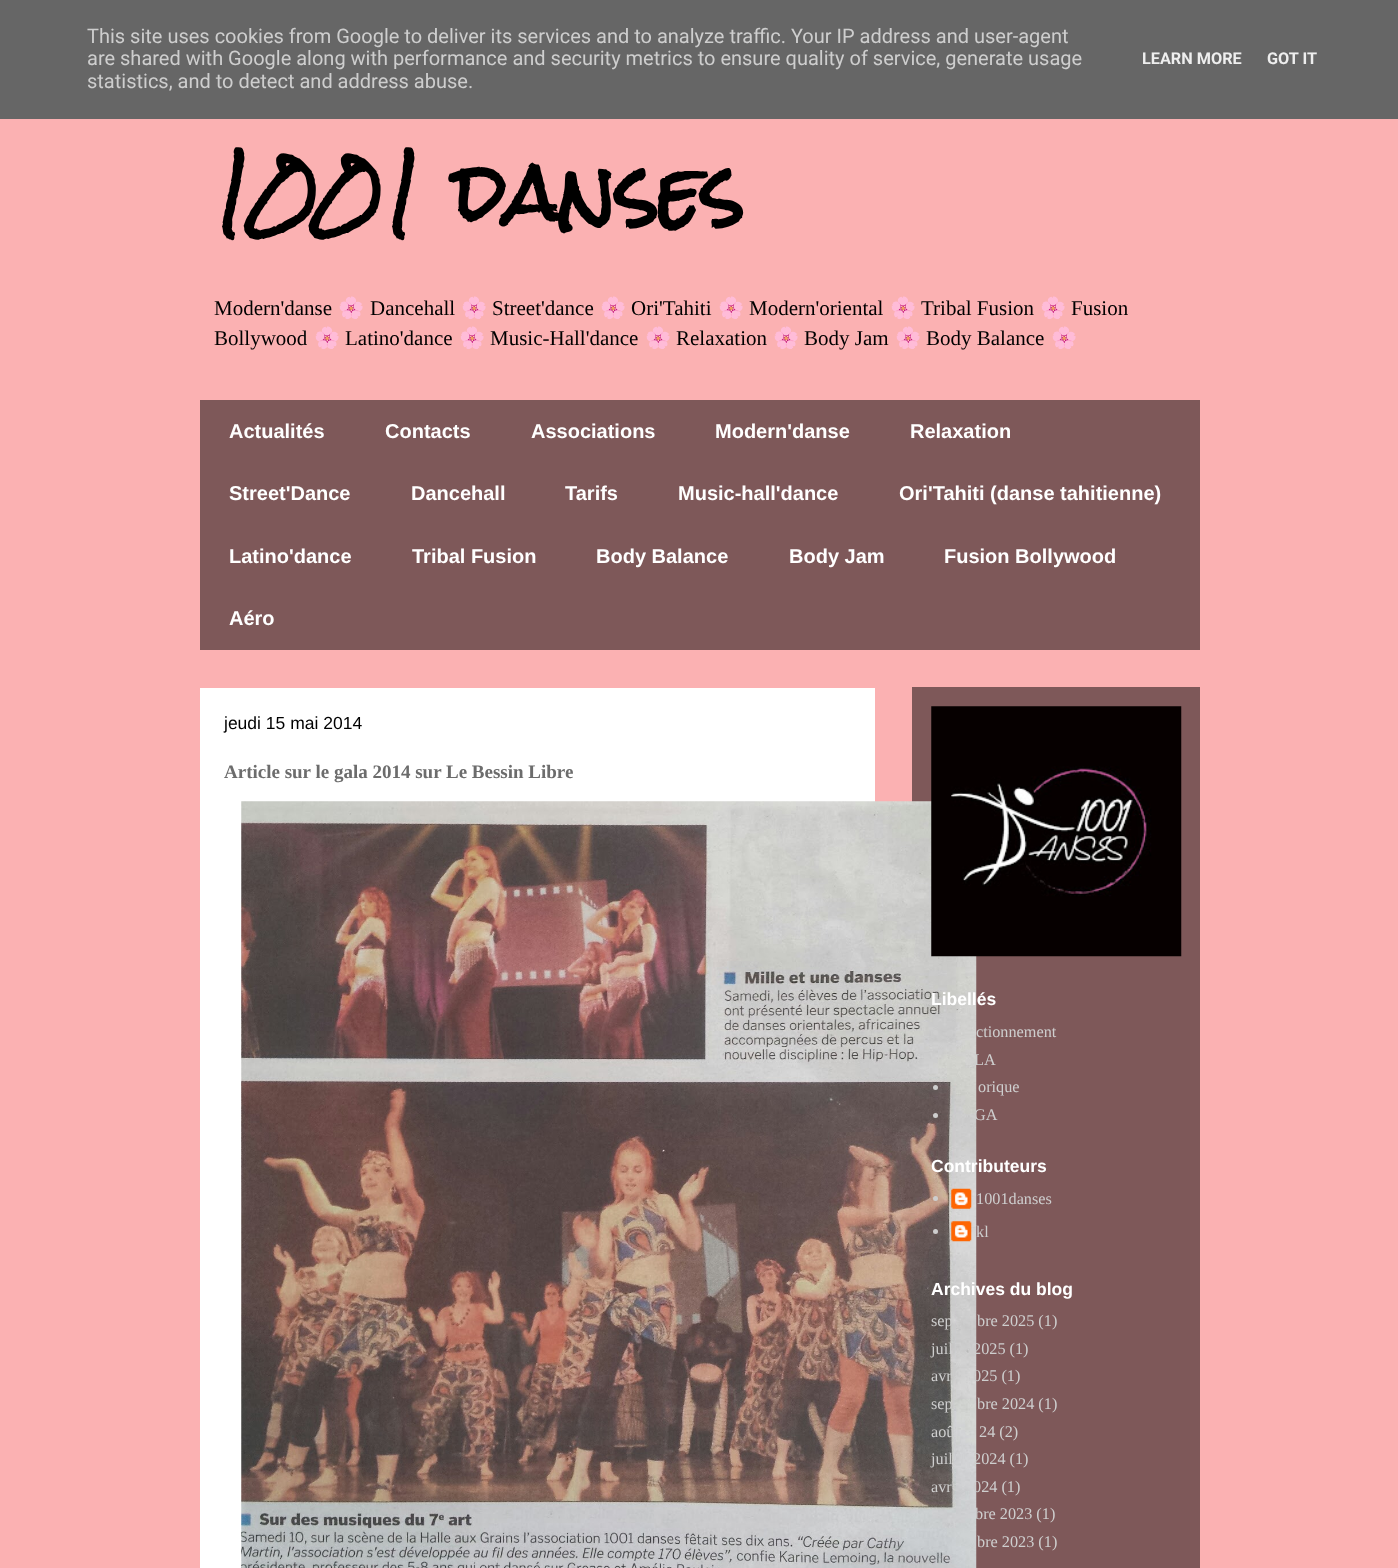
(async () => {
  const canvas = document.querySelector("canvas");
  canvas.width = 1398;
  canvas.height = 1568;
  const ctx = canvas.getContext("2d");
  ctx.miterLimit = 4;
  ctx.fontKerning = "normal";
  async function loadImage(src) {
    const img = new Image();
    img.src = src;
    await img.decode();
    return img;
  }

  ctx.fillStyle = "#fbb1b2";
  ctx.fillRect(0, 0, 1398, 1568);
  for (const [x, y, w, h, color] of [
    [0, 0, 1398, 119, "#666666"],
    [200, 400, 1000, 250, "#7e5859"],
    [912, 687, 288, 881, "#7e5859"],
    [200, 688, 675, 880, "#ffffff"],
  ]) {
    ctx.fillStyle = color;
    ctx.fillRect(x, y, w, h);
  }
  ctx.drawImage(await loadImage("img/1.png"), 241, 801, 736, 767);
  ctx.drawImage(await loadImage("img/2.png"), 931, 706, 251, 251);
  ctx.fillStyle = "#cecece";
  ctx.beginPath();
  ctx.arc(935.5, 1032.5, 2.5, 0, Math.PI * 2);
  ctx.fill();
  ctx.beginPath();
  ctx.arc(935.5, 1060.5, 2.5, 0, Math.PI * 2);
  ctx.fill();
  ctx.beginPath();
  ctx.arc(935.5, 1087.5, 2.5, 0, Math.PI * 2);
  ctx.fill();
  ctx.beginPath();
  ctx.arc(935.5, 1115.5, 2.5, 0, Math.PI * 2);
  ctx.fill();
  ctx.beginPath();
  ctx.arc(935.5, 1198.5, 2.5, 0, Math.PI * 2);
  ctx.fill();
  ctx.drawImage(await loadImage("img/3.png"), 951, 1188, 21, 21);
  ctx.beginPath();
  ctx.arc(935.5, 1231.5, 2.5, 0, Math.PI * 2);
  ctx.fill();
  ctx.drawImage(await loadImage("img/4.png"), 951, 1221, 21, 21);
  ctx.font = "20px Roboto";
  for (const [text, x, y] of [
    ["This site uses cookies from Google to deliver its services and to analyze traffic. Your IP address and user-agent", 87, 43],
    ["are shared with Google along with performance and security metrics to ensure quality of service, generate usage", 87, 65],
    ["statistics, and to detect and address abuse.", 87, 88],
  ]) {
    ctx.fillText(text, x, y);
  }
  ctx.font = "bold 16.25px Roboto";
  ctx.fillStyle = "#eeeeee";
  ctx.fillText("LEARN MORE", 1142, 64);
  ctx.fillText("GOT IT", 1267, 64);
  ctx.font = "bold 75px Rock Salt";
  ctx.fillStyle = "#000000";
  ctx.fillText("1001 danses", 212, 223);
  ctx.font = "21px Liberation Serif";
  ctx.fillText("Modern'danse", 214, 315);
  ctx.font = "21px Noto Color Emoji";
  ctx.fillText("🌸", 338, 315);
  ctx.font = "21px Liberation Serif";
  ctx.fillText("Dancehall", 370, 315);
  ctx.font = "21px Noto Color Emoji";
  ctx.fillText("🌸", 461, 315);
  ctx.font = "21px Liberation Serif";
  ctx.fillText("Street'dance", 492, 315);
  ctx.font = "21px Noto Color Emoji";
  ctx.fillText("🌸", 600, 315);
  ctx.font = "21px Liberation Serif";
  ctx.fillText("Ori'Tahiti", 631, 315);
  ctx.font = "21px Noto Color Emoji";
  ctx.fillText("🌸", 718, 315);
  ctx.font = "21px Liberation Serif";
  ctx.fillText("Modern'oriental", 749, 315);
  ctx.font = "21px Noto Color Emoji";
  ctx.fillText("🌸", 890, 315);
  ctx.font = "21px Liberation Serif";
  ctx.fillText("Tribal Fusion", 921, 315);
  ctx.font = "21px Noto Color Emoji";
  ctx.fillText("🌸", 1040, 315);
  ctx.font = "21px Liberation Serif";
  ctx.fillText("Fusion", 1071, 315);
  ctx.fillText("Bollywood", 214, 345);
  ctx.font = "21px Noto Color Emoji";
  ctx.fillText("🌸", 314, 345);
  ctx.font = "21px Liberation Serif";
  ctx.fillText("Latino'dance", 345, 345);
  ctx.font = "21px Noto Color Emoji";
  ctx.fillText("🌸", 459, 345);
  ctx.font = "21px Liberation Serif";
  ctx.fillText("Music-Hall'dance", 490, 345);
  ctx.font = "21px Noto Color Emoji";
  ctx.fillText("🌸", 645, 345);
  ctx.font = "21px Liberation Serif";
  ctx.fillText("Relaxation", 676, 345);
  ctx.font = "21px Noto Color Emoji";
  ctx.fillText("🌸", 773, 345);
  ctx.font = "21px Liberation Serif";
  ctx.fillText("Body Jam", 804, 345);
  ctx.font = "21px Noto Color Emoji";
  ctx.fillText("🌸", 895, 345);
  ctx.font = "21px Liberation Serif";
  ctx.fillText("Body Balance", 926, 345);
  ctx.font = "21px Noto Color Emoji";
  ctx.fillText("🌸", 1051, 345);
  ctx.font = "bold 20px Liberation Sans";
  ctx.fillStyle = "#ffffff";
  for (const [text, x, y] of [
    ["Actualités", 229, 438],
    ["Contacts", 385, 438],
    ["Associations", 531, 438],
    ["Modern'danse", 715, 438],
    ["Relaxation", 910, 438],
    ["Street'Dance", 229, 500],
    ["Dancehall", 411, 500],
    ["Tarifs", 565, 500],
    ["Music-hall'dance", 678, 500],
    ["Ori'Tahiti (danse tahitienne)", 899, 500],
    ["Latino'dance", 229, 563],
    ["Tribal Fusion", 412, 563],
    ["Body Balance", 596, 563],
    ["Body Jam", 789, 563],
    ["Fusion Bollywood", 944, 563],
    ["Aéro", 229, 625],
  ]) {
    ctx.fillText(text, x, y);
  }
  ctx.font = "17.5px Liberation Sans";
  ctx.fillStyle = "#000000";
  ctx.fillText("jeudi 15 mai 2014", 224, 729);
  ctx.font = "bold 19px Liberation Serif";
  ctx.fillStyle = "#6c6c6c";
  ctx.fillText("Article sur le gala 2014 sur Le Bessin Libre", 224, 778);
  ctx.font = "bold 17.5px Liberation Sans";
  ctx.fillStyle = "#ffffff";
  ctx.fillText("Libellés", 931, 1005);
  ctx.font = "16.25px Liberation Serif";
  ctx.fillStyle = "#cecece";
  for (const [text, x, y] of [
    ["ctionnement", 976, 1037],
    ["LA", 974, 1065],
    ["orique", 978, 1092],
    ["GA", 974, 1120],
  ]) {
    ctx.fillText(text, x, y);
  }
  ctx.font = "bold 17.5px Liberation Sans";
  ctx.fillStyle = "#ffffff";
  ctx.fillText("Contributeurs", 931, 1172);
  ctx.font = "16.25px Liberation Serif";
  ctx.fillStyle = "#cecece";
  ctx.fillText("1001danses", 976, 1204);
  ctx.fillText("kl", 976, 1237);
  ctx.font = "bold 17.5px Liberation Sans";
  ctx.fillStyle = "#ffffff";
  ctx.fillText("Archives du blog", 931, 1295);
  ctx.font = "16.25px Liberation Serif";
  ctx.fillStyle = "#cecece";
  for (const [text, x, y] of [
    ["sep", 931, 1326],
    ["bre 2025 (1)", 977, 1326],
    ["juil", 931, 1354],
    ["2025 (1)", 973, 1354],
    ["avr", 931, 1381],
    ["025 (1)", 973, 1381],
    ["sep", 931, 1409],
    ["bre 2024 (1)", 977, 1409],
    ["aoû", 931, 1437],
    ["24 (2)", 979, 1437],
    ["juil", 931, 1464],
    ["2024 (1)", 973, 1464],
    ["avr", 931, 1492],
    ["024 (1)", 973, 1492],
    ["bre 2023 (1)", 975, 1519],
    ["bre 2023 (1)", 977, 1547],
  ]) {
    ctx.fillText(text, x, y);
  }
})();
